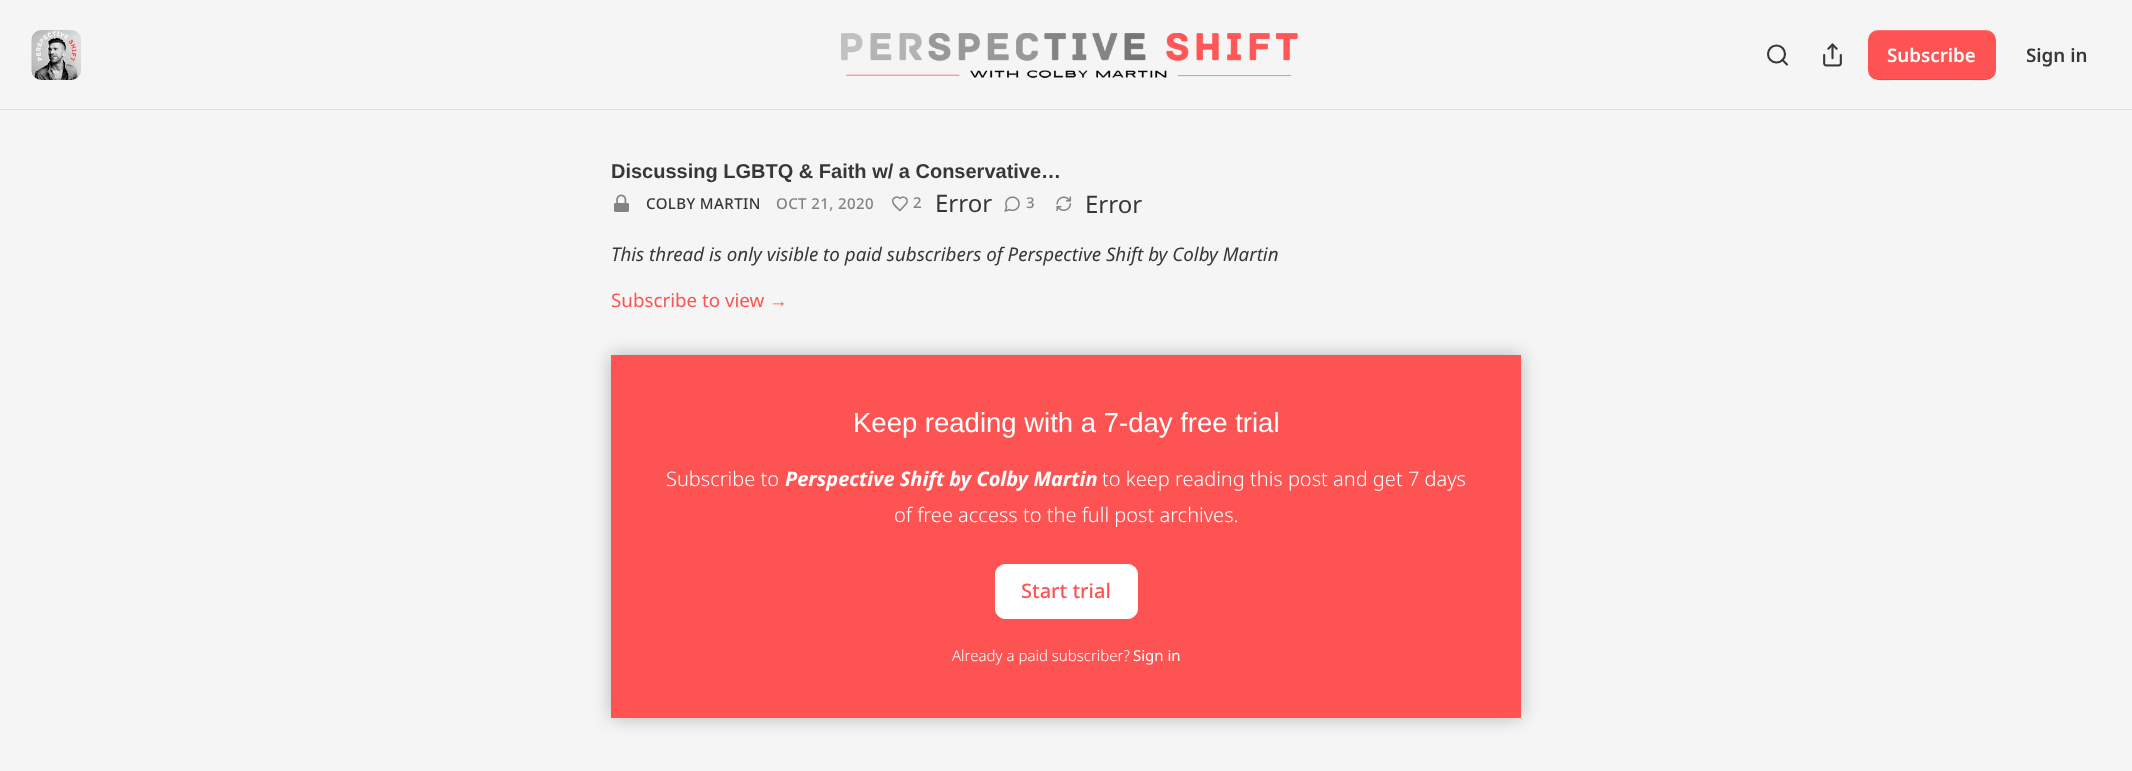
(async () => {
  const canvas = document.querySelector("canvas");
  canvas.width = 2132;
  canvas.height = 771;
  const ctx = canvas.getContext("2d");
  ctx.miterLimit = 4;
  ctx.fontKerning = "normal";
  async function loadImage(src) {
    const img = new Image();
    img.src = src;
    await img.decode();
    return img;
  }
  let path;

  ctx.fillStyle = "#f5f5f5";
  ctx.fillRect(0, 0, 2132, 771);
  ctx.fillStyle = "#dddddd";
  ctx.fillRect(0, 109, 2132, 1);
  ctx.fillStyle = "#ffffff";
  ctx.beginPath();
  ctx.roundRect(31, 30, 50, 50, 10);
  ctx.fill();
  ctx.drawImage(await loadImage("img/1.png"), 31, 30, 50, 50);
  ctx.drawImage(await loadImage("img/2.png"), 841, 33, 457, 45);
  ctx.beginPath();
  ctx.arc(1776.5, 54, 8.5, 0, Math.PI * 2);
  ctx.strokeStyle = "#363737";
  ctx.lineWidth = 2.1;
  ctx.stroke();
  path = new Path2D("M1787 64.5L1782.5 60");
  ctx.lineCap = "round";
  ctx.lineJoin = "round";
  ctx.stroke(path);
  ctx.drawImage(await loadImage("img/3.png"), 1823, 43, 19, 24);
  ctx.fillStyle = "#fd5353";
  ctx.beginPath();
  ctx.roundRect(1868, 30, 128, 50, 10);
  ctx.fill();
  ctx.fillStyle = "rgba(0, 0, 0, 0.1)";
  path = new Path2D("M1868 69C1868 84 1886 80 1896 80H1968C1978 80 1996 84 1996 69C1996 74 1992 79 1986 79H1878C1872 79 1868 74 1868 69Z");
  ctx.fill(path);
  ctx.fillStyle = "rgba(255, 255, 255, 0.2)";
  path = new Path2D("M1878 31H1986C1992 31 1996 36 1996 41C1996 26 1978 30 1968 30H1896C1886 30 1868 26 1868 41C1868 36 1872 31 1878 31Z");
  ctx.fill(path);
  ctx.drawImage(await loadImage("img/4.png"), 614, 194, 15, 18);
  path = new Path2D("M905 205C910.5 200 904.5 194.5 900 198.5C897 195.5 891.5 198 893 202.5C893.5 205 898 208.5 900 210.5Z");
  ctx.strokeStyle = "#828383";
  ctx.lineWidth = 1.5;
  ctx.stroke(path);
  ctx.drawImage(await loadImage("img/5.png"), 1004, 196, 16, 16);
  ctx.drawImage(await loadImage("img/6.png"), 1056, 196, 16, 15);
  ctx.fillStyle = "#fd5353";
  ctx.fillRect(611, 355, 910, 363);
  ctx.fillStyle = "#ffffff";
  ctx.beginPath();
  ctx.roundRect(995.5, 564.5, 142, 54, 9.5);
  ctx.fill();
  ctx.strokeStyle = "#ffffff";
  ctx.lineWidth = 1;
  ctx.lineJoin = "miter";
  ctx.stroke();
  ctx.save();
  path = new Path2D("M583 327H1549V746H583ZM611 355H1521V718H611Z");
  ctx.clip(path, "evenodd");
  ctx.fillStyle = "rgba(0, 0, 0, 0.25)";
  ctx.filter = "blur(9px)";
  ctx.beginPath();
  ctx.rect(611, 355, 910, 363);
  ctx.fill();
  ctx.filter = "none";
  ctx.restore();
  ctx.font = "600 18.75px Noto Sans";
  ctx.fillText("Subscribe", 1887, 62);
  ctx.fillStyle = "#363737";
  ctx.fillText("Sign in", 2026, 62);
  ctx.font = "bold 20px Liberation Sans";
  ctx.fillText("Discussing LGBTQ & Faith w/ a Conservative…", 611, 178);
  ctx.letterSpacing = "0.4px";
  ctx.font = "500 15px Noto Sans";
  ctx.fillText("COLBY MARTIN", 646, 209);
  ctx.fillStyle = "#828383";
  ctx.fillText("OCT 21, 2020", 776, 209);
  ctx.fillText("2", 913, 208);
  ctx.letterSpacing = "0px";
  ctx.font = "24px Noto Sans";
  ctx.fillStyle = "#363737";
  ctx.fillText("Error", 935, 212);
  ctx.letterSpacing = "0.4px";
  ctx.font = "500 15px Noto Sans";
  ctx.fillStyle = "#828383";
  ctx.fillText("3", 1026, 208);
  ctx.letterSpacing = "0px";
  ctx.font = "24px Noto Sans";
  ctx.fillStyle = "#363737";
  ctx.fillText("Error", 1085, 213);
  ctx.font = "italic 18.75px Noto Sans";
  ctx.fillText("This thread is only visible to paid subscribers of Perspective Shift by Colby Martin", 611, 261);
  ctx.font = "18.75px Noto Sans";
  ctx.fillStyle = "#fd5353";
  ctx.fillText("Subscribe to view", 611, 307);
  ctx.font = "18.75px Liberation Sans";
  ctx.fillText("→", 769, 307);
  ctx.font = "27.5px Liberation Sans";
  ctx.fillStyle = "#ffffff";
  ctx.fillText("Keep reading with a 7-day free trial", 853, 432);
  ctx.font = "300 20px Noto Sans";
  ctx.fillText("Subscribe to", 666, 486);
  ctx.font = "italic bold 20px Noto Sans";
  ctx.fillText("Perspective Shift by Colby Martin", 785, 486);
  ctx.font = "300 20px Noto Sans";
  ctx.fillText("to keep reading this post and get 7 days", 1102, 486);
  ctx.fillText("of free access to the full post archives.", 894, 522);
  ctx.font = "500 20px Noto Sans";
  ctx.fillStyle = "#fd5353";
  ctx.fillText("Start trial", 1021, 598);
  ctx.font = "300 15px Noto Sans";
  ctx.fillStyle = "#ffffff";
  ctx.fillText("Already a paid subscriber?", 952, 661);
  ctx.font = "15px Noto Sans";
  ctx.fillText("Sign in", 1133, 661);
})();
